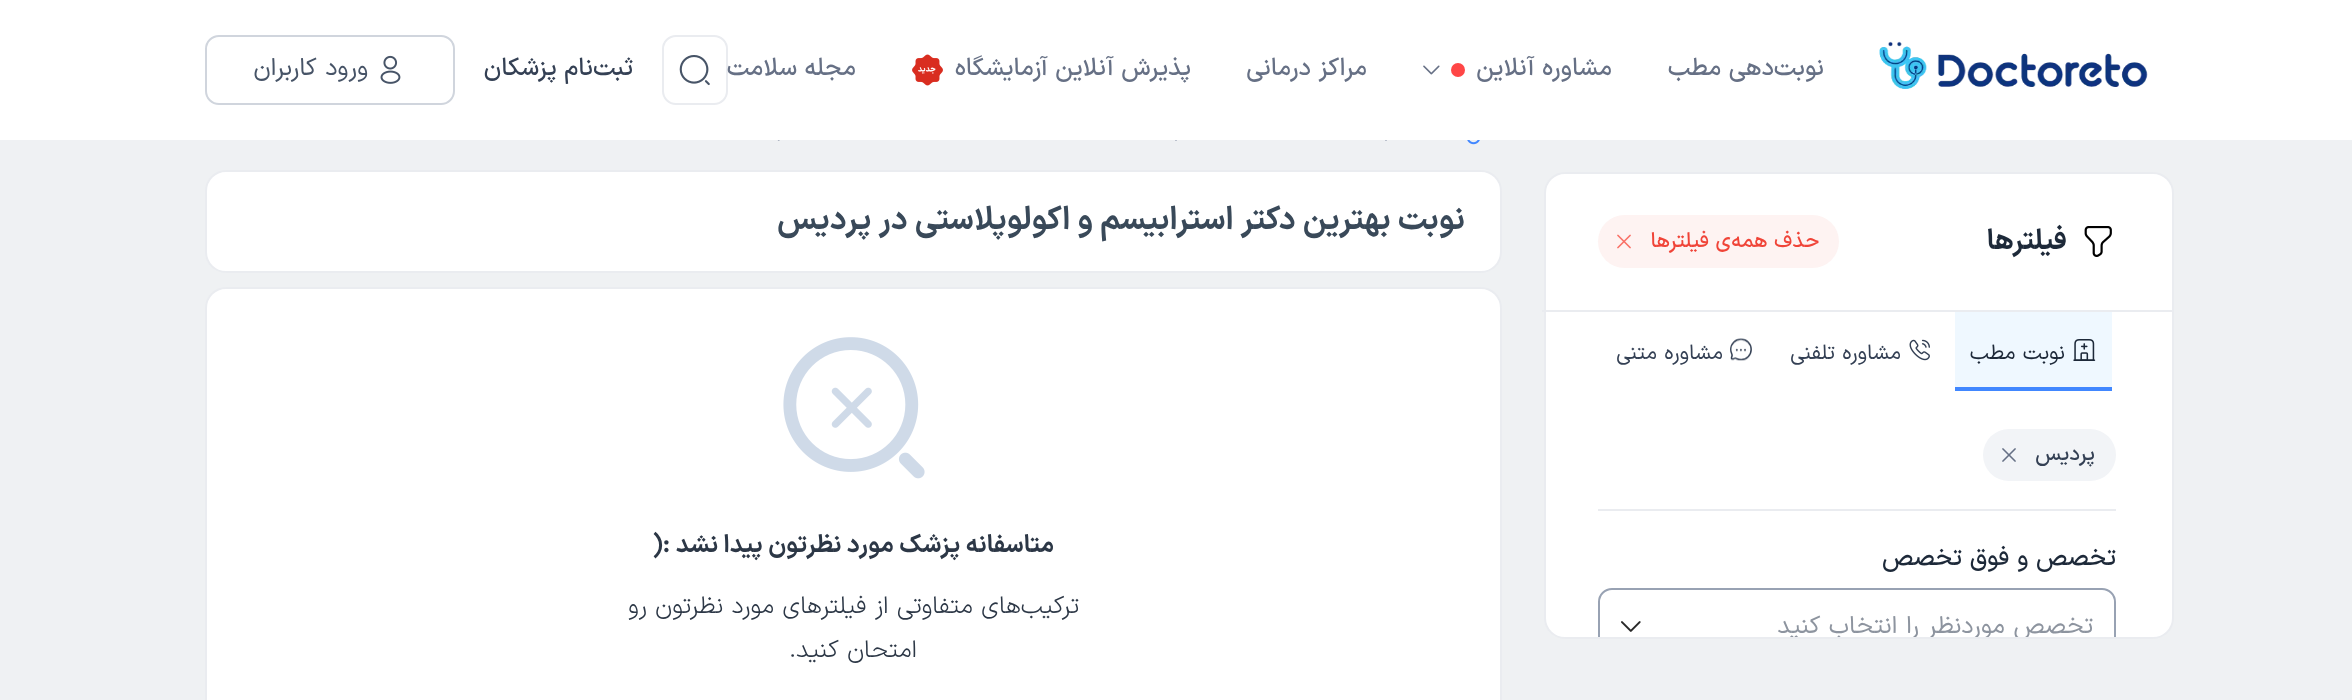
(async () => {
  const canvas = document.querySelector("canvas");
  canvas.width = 2352;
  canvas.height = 700;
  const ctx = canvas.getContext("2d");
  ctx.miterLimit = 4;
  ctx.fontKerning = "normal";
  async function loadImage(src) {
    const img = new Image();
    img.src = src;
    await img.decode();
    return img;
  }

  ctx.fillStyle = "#eff1f3";
  ctx.fillRect(0, 0, 2352, 700);
  ctx.fillStyle = "#ffffff";
  ctx.fillRect(0, 0, 2352, 140);
  ctx.drawImage(await loadImage("img/1.png"), 1879, 41, 269, 48);
  ctx.fillStyle = "#ff4646";
  ctx.beginPath();
  ctx.arc(1458, 70, 7, 0, Math.PI * 2);
  ctx.fill();
  ctx.drawImage(await loadImage("img/2.png"), 1423, 65, 17, 10);
  ctx.drawImage(await loadImage("img/3.png"), 912, 54, 31, 32);
  ctx.beginPath();
  ctx.roundRect(663, 36, 64, 68, 13);
  ctx.strokeStyle = "#eaecf0";
  ctx.lineWidth = 2;
  ctx.stroke();
  ctx.drawImage(await loadImage("img/4.png"), 679, 55, 31, 31);
  ctx.beginPath();
  ctx.roundRect(206, 36, 248, 68, 13);
  ctx.strokeStyle = "#d0d5dd";
  ctx.stroke();
  ctx.drawImage(await loadImage("img/5.png"), 380, 55, 21, 29);
  ctx.fillStyle = "#ffffff";
  ctx.beginPath();
  ctx.roundRect(1545, 173, 628, 465, 20);
  ctx.fill();
  ctx.strokeStyle = "#eaecf0";
  ctx.stroke();
  ctx.fillStyle = "#eaecf0";
  ctx.fillRect(1542, 310, 630, 2);
  ctx.drawImage(await loadImage("img/6.png"), 2084, 226, 28, 31);
  ctx.fillStyle = "#fef3f2";
  ctx.beginPath();
  ctx.roundRect(1598, 215, 241, 53, 26.5);
  ctx.fill();
  ctx.drawImage(await loadImage("img/7.png"), 1617, 234, 14, 15);
  ctx.fillStyle = "#eff8ff";
  ctx.fillRect(1955, 312, 157, 75);
  ctx.fillStyle = "#4187ff";
  ctx.fillRect(1955, 387, 157, 4);
  ctx.drawImage(await loadImage("img/8.png"), 2073, 339, 23, 22);
  ctx.drawImage(await loadImage("img/9.png"), 1909, 339, 21, 22);
  ctx.drawImage(await loadImage("img/10.png"), 1730, 338, 22, 23);
  ctx.fillStyle = "#eaecf0";
  ctx.fillRect(1598, 509, 518, 2);
  ctx.fillStyle = "#f2f4f7";
  ctx.beginPath();
  ctx.roundRect(1983, 429, 133, 52, 26);
  ctx.fill();
  ctx.drawImage(await loadImage("img/11.png"), 2002, 448, 14, 14);
  ctx.save();
  ctx.beginPath();
  ctx.rect(1542, 401, 630, 236);
  ctx.clip();
  ctx.beginPath();
  ctx.roundRect(1599, 589, 516, 75, 13);
  ctx.strokeStyle = "#98a2b3";
  ctx.stroke();
  ctx.restore();
  ctx.drawImage(await loadImage("img/12.png"), 1621, 621, 20, 11);
  ctx.drawImage(await loadImage("img/13.png"), 1467, 140, 13, 5);
  ctx.drawImage(await loadImage("img/14.png"), 1385, 140, 2, 1);
  ctx.drawImage(await loadImage("img/14.png"), 1175, 140, 2, 1);
  ctx.drawImage(await loadImage("img/15.png"), 777, 140, 3, 1);
  ctx.fillStyle = "#ffffff";
  ctx.beginPath();
  ctx.roundRect(206, 171, 1295, 101, 20);
  ctx.fill();
  ctx.stroke();
  ctx.beginPath();
  ctx.roundRect(206, 288, 1295, 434, 20);
  ctx.fill();
  ctx.stroke();
  ctx.drawImage(await loadImage("img/16.png"), 783, 337, 142, 142);
  ctx.direction = "rtl";
  ctx.font = "500 24.5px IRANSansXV";
  ctx.fillStyle = "#667085";
  for (const [text, x, y] of [
    ["نوبت‌دهی مطب", 1824, 75],
    ["مشاوره آنلاین", 1612, 75],
    ["مراکز درمانی", 1367, 75],
    ["پذیرش آنلاین آزمایشگاه", 1191, 75],
    ["مجله سلامت", 856, 75],
  ]) {
    ctx.fillText(text, x, y);
  }
  ctx.fillStyle = "#344054";
  ctx.fillText("ثبت‌نام پزشکان", 633, 75);
  ctx.font = "24.5px IRANSansXV";
  ctx.fillStyle = "#475467";
  ctx.fillText("ورود کاربران", 368, 75);
  ctx.font = "bold 28px IRANSansXV";
  ctx.fillStyle = "#1d2939";
  ctx.fillText("فیلترها", 2067, 249);
  ctx.font = "500 21px IRANSansXV";
  ctx.fillStyle = "#f04438";
  ctx.fillText("حذف همه‌ی فیلتر‌ها", 1819, 247);
  ctx.font = "21px IRANSansXV";
  ctx.fillStyle = "#1d2939";
  ctx.fillText("نوبت‌ مطب", 2065, 359);
  ctx.fillStyle = "#344054";
  ctx.fillText("مشاوره تلفنی", 1901, 359);
  ctx.fillText("مشاوره متنی", 1723, 359);
  ctx.font = "500 21px IRANSansXV";
  ctx.fillText("پردیس", 2095, 460);
  ctx.font = "500 24.5px IRANSansXV";
  ctx.fillStyle = "#1d2939";
  ctx.fillText("تخصص و فوق تخصص", 2116, 565);
  ctx.save();
  ctx.beginPath();
  ctx.rect(1677, 609, 416, 28);
  ctx.clip();
  ctx.font = "24.5px IRANSansXV";
  ctx.fillStyle = "#8d949f";
  ctx.fillText("تخصص موردنظر را انتخاب کنید", 2093, 633);
  ctx.restore();
  ctx.font = "bold 31.85px IRANSansXV";
  ctx.fillStyle = "#394959";
  ctx.fillText("نوبت بهترین دکتر استرابیسم و اکولوپلاستی در پردیس", 1465, 229);
  ctx.font = "bold 24.5px IRANSansXV";
  ctx.fillStyle = "#2c3746";
  ctx.fillText("متاسفانه پزشک مورد نظرتون پیدا نشد :(", 1054, 552);
  ctx.font = "300 24.5px IRANSansXV";
  ctx.fillText("ترکیب‌های متفاوتی از فیلتر‌های مورد نظرتون رو", 1079, 613);
  ctx.fillText("امتحان کنید.", 917, 657);
})();
